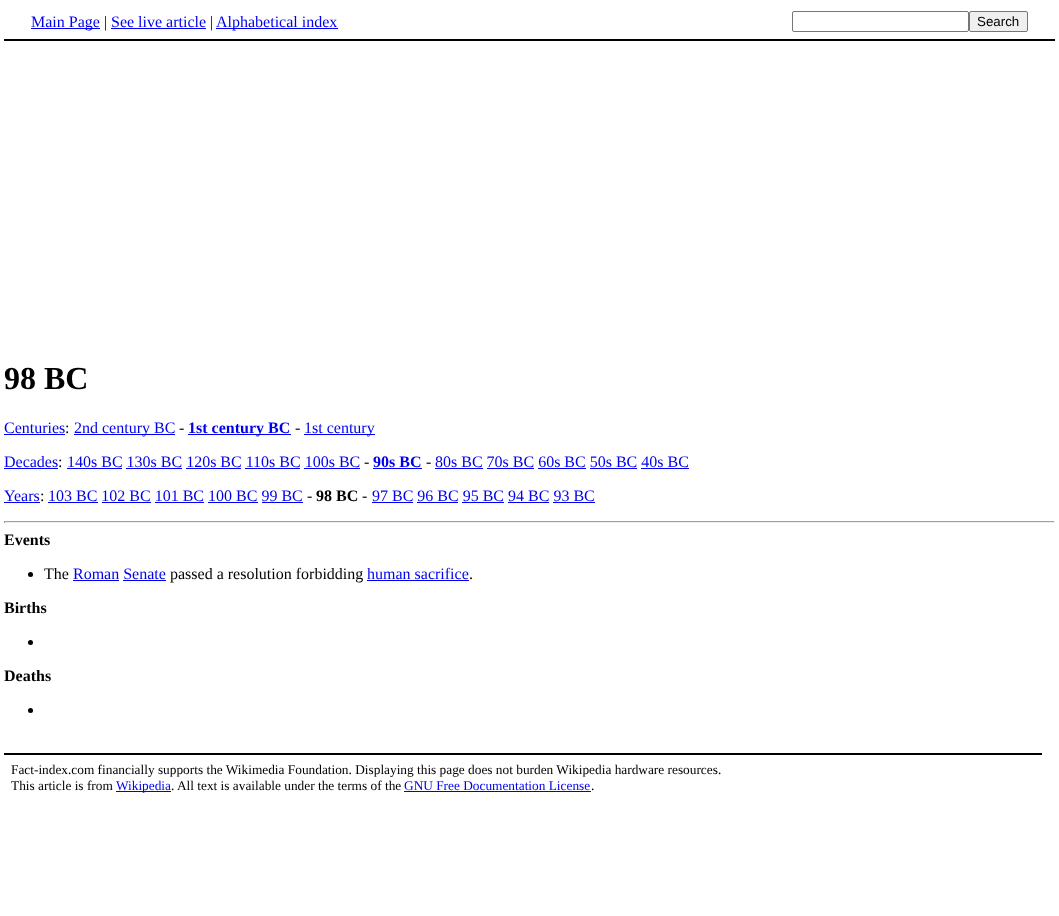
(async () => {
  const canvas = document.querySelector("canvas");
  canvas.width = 1059;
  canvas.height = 916;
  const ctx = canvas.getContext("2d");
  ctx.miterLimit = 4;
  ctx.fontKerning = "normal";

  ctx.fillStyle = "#ffffff";
  ctx.fillRect(0, 0, 1059, 916);
  for (const [x, y, w, h, color] of [
    [4, 39, 1051, 2, "#000000"],
    [31, 28, 69, 1, "#0000ee"],
    [111, 28, 95, 1, "#0000ee"],
    [216, 28, 122, 1, "#0000ee"],
  ]) {
    ctx.fillStyle = color;
    ctx.fillRect(x, y, w, h);
  }
  ctx.beginPath();
  ctx.roundRect(792.5, 11.5, 176, 20, 1.5);
  ctx.strokeStyle = "#767676";
  ctx.stroke();
  ctx.fillStyle = "#efefef";
  ctx.beginPath();
  ctx.roundRect(969.5, 11.5, 58, 20, 1.5);
  ctx.fill();
  ctx.stroke();
  for (const [x, y, w, h, color] of [
    [4, 434, 61, 1, "#0000ee"],
    [74, 434, 101, 1, "#0000ee"],
    [188, 434, 103, 1, "#0000ee"],
    [304, 434, 71, 1, "#0000ee"],
    [4, 468, 54, 1, "#0000ee"],
    [67, 468, 55, 1, "#0000ee"],
    [373, 468, 49, 1, "#0000ee"],
    [435, 468, 48, 1, "#0000ee"],
    [126, 468, 56, 1, "#0000ee"],
    [186, 468, 55, 1, "#0000ee"],
    [245, 468, 55, 1, "#0000ee"],
    [304, 468, 56, 1, "#0000ee"],
    [487, 468, 47, 1, "#0000ee"],
    [538, 468, 48, 1, "#0000ee"],
    [590, 468, 47, 1, "#0000ee"],
    [641, 468, 48, 1, "#0000ee"],
    [4, 502, 36, 1, "#0000ee"],
    [48, 502, 50, 1, "#0000ee"],
    [372, 502, 41, 1, "#0000ee"],
    [102, 502, 49, 1, "#0000ee"],
    [155, 502, 49, 1, "#0000ee"],
    [208, 502, 50, 1, "#0000ee"],
    [262, 502, 41, 1, "#0000ee"],
    [417, 502, 41, 1, "#0000ee"],
    [462, 502, 42, 1, "#0000ee"],
    [508, 502, 41, 1, "#0000ee"],
    [553, 502, 42, 1, "#0000ee"],
    [4, 521, 1051, 1, "#9f9f9f"],
    [1054, 521, 1, 2, "#eeeeee"],
    [4, 522, 1051, 1, "#eeeeee"],
    [4, 521, 1, 2, "#9f9f9f"],
  ]) {
    ctx.fillStyle = color;
    ctx.fillRect(x, y, w, h);
  }
  ctx.fillStyle = "#000000";
  ctx.beginPath();
  ctx.arc(30.5, 574.5, 2.5, 0, Math.PI * 2);
  ctx.fill();
  for (const [x, y, w, h, color] of [
    [73, 580, 46, 1, "#0000ee"],
    [367, 580, 102, 1, "#0000ee"],
    [123, 580, 43, 1, "#0000ee"],
  ]) {
    ctx.fillStyle = color;
    ctx.fillRect(x, y, w, h);
  }
  ctx.fillStyle = "#000000";
  ctx.beginPath();
  ctx.arc(30.5, 642.5, 2.5, 0, Math.PI * 2);
  ctx.fill();
  ctx.beginPath();
  ctx.arc(30.5, 710.5, 2.5, 0, Math.PI * 2);
  ctx.fill();
  for (const [x, y, w, h, color] of [
    [4, 753, 1038, 2, "#000000"],
    [116, 791, 55, 1, "#0000ee"],
    [404, 791, 187, 1, "#0000ee"],
  ]) {
    ctx.fillStyle = color;
    ctx.fillRect(x, y, w, h);
  }
  ctx.font = "16px Liberation Serif";
  ctx.fillText("Main Page", 31, 27);
  ctx.fillStyle = "#000000";
  ctx.fillText("|", 104, 27);
  ctx.fillStyle = "#0000ee";
  ctx.fillText("See live article", 111, 27);
  ctx.fillStyle = "#000000";
  ctx.fillText("|", 210, 27);
  ctx.fillStyle = "#0000ee";
  ctx.fillText("Alphabetical index", 216, 27);
  ctx.font = "13.33px Liberation Sans";
  ctx.fillStyle = "#000000";
  ctx.fillText("Search", 977, 26);
  ctx.font = "bold 32px Liberation Serif";
  ctx.fillText("98 BC", 4, 389);
  ctx.font = "16px Liberation Serif";
  ctx.fillStyle = "#0000ee";
  ctx.fillText("Centuries", 4, 433);
  ctx.fillStyle = "#000000";
  ctx.fillText(":", 65, 433);
  ctx.fillStyle = "#0000ee";
  ctx.fillText("2nd century BC", 74, 433);
  ctx.fillStyle = "#000000";
  ctx.fillText("-", 179, 433);
  ctx.font = "bold 16px Liberation Serif";
  ctx.fillStyle = "#0000ee";
  ctx.fillText("1st century BC", 188, 433);
  ctx.font = "16px Liberation Serif";
  ctx.fillStyle = "#000000";
  ctx.fillText("-", 295, 433);
  ctx.fillStyle = "#0000ee";
  ctx.fillText("1st century", 304, 433);
  ctx.fillText("Decades", 4, 467);
  ctx.fillStyle = "#000000";
  ctx.fillText(":", 58, 467);
  ctx.fillStyle = "#0000ee";
  ctx.fillText("140s BC 130s BC 120s BC 110s BC 100s BC", 67, 467);
  ctx.fillStyle = "#000000";
  ctx.fillText("-", 364, 467);
  ctx.font = "bold 16px Liberation Serif";
  ctx.fillStyle = "#0000ee";
  ctx.fillText("90s BC", 373, 467);
  ctx.font = "16px Liberation Serif";
  ctx.fillStyle = "#000000";
  ctx.fillText("-", 426, 467);
  ctx.fillStyle = "#0000ee";
  ctx.fillText("80s BC 70s BC 60s BC 50s BC 40s BC", 435, 467);
  ctx.fillText("Years", 4, 501);
  ctx.fillStyle = "#000000";
  ctx.fillText(":", 40, 501);
  ctx.fillStyle = "#0000ee";
  ctx.fillText("103 BC 102 BC 101 BC 100 BC 99 BC", 48, 501);
  ctx.fillStyle = "#000000";
  ctx.fillText("-", 307, 501);
  ctx.font = "bold 16px Liberation Serif";
  ctx.fillText("98 BC", 316, 501);
  ctx.font = "16px Liberation Serif";
  ctx.fillText("-", 362, 501);
  ctx.fillStyle = "#0000ee";
  ctx.fillText("97 BC 96 BC 95 BC 94 BC 93 BC", 372, 501);
  ctx.font = "bold 16px Liberation Serif";
  ctx.fillStyle = "#000000";
  ctx.fillText("Events", 4, 545);
  ctx.font = "16px Liberation Serif";
  ctx.fillText("The", 44, 579);
  ctx.fillStyle = "#0000ee";
  ctx.fillText("Roman Senate", 73, 579);
  ctx.fillStyle = "#000000";
  ctx.fillText("passed a resolution forbidding", 170, 579);
  ctx.fillStyle = "#0000ee";
  ctx.fillText("human sacrifice", 367, 579);
  ctx.fillStyle = "#000000";
  ctx.fillText(".", 469, 579);
  ctx.font = "bold 16px Liberation Serif";
  ctx.fillText("Births", 4, 613);
  ctx.fillText("Deaths", 4, 681);
  ctx.font = "13.33px Liberation Serif";
  ctx.fillText("Fact-index.com financially supports the Wikimedia Foundation. Displaying this page does not burden Wikipedia hardware resources.", 11, 774);
  ctx.fillText("This article is from", 11, 790);
  ctx.fillStyle = "#0000ee";
  ctx.fillText("Wikipedia", 116, 790);
  ctx.fillStyle = "#000000";
  ctx.fillText(". All text is available under the terms of the", 171, 790);
  ctx.fillStyle = "#0000ee";
  ctx.fillText("GNU Free Documentation License", 404, 790);
  ctx.fillStyle = "#000000";
  ctx.fillText(".", 591, 790);
})();
